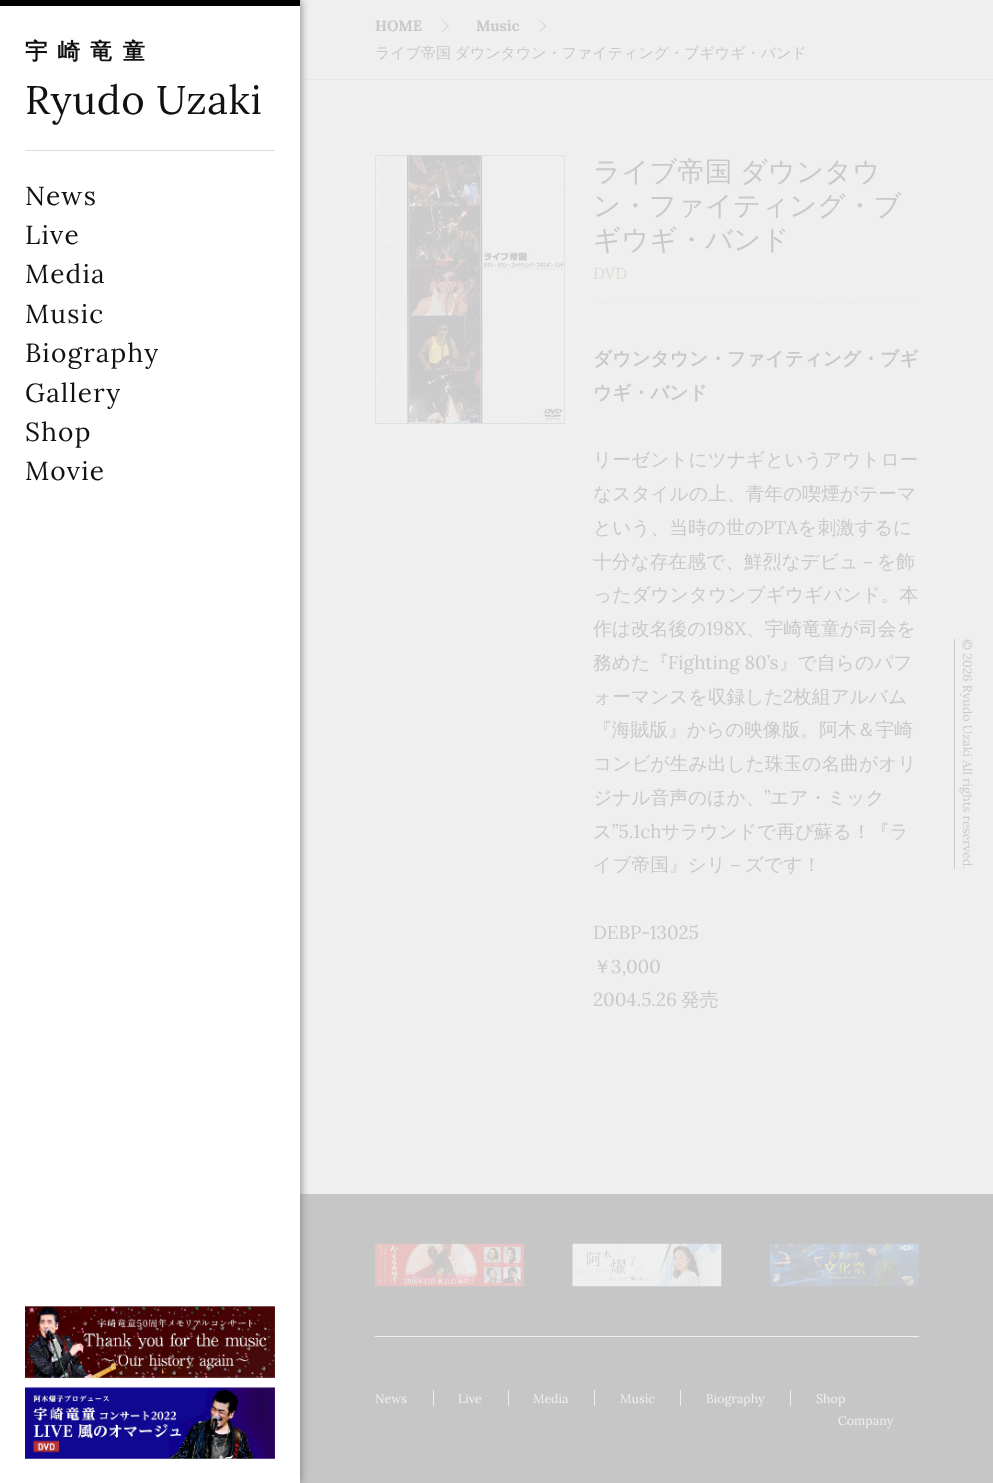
(async () => {
  const canvas = document.querySelector("canvas");
  canvas.width = 993;
  canvas.height = 1483;
  const ctx = canvas.getContext("2d");
  ctx.miterLimit = 4;
  ctx.fontKerning = "normal";
  async function loadImage(src) {
    const img = new Image();
    img.src = src;
    await img.decode();
    return img;
  }
  let path;

  ctx.fillStyle = "#efefef";
  ctx.fillRect(0, 0, 993, 1483);
  ctx.fillStyle = "#e7e7e7";
  ctx.fillRect(300, 79, 693, 1);
  ctx.fillStyle = "#c6c6c6";
  ctx.fillRect(300, 1194, 693, 289);
  ctx.fillStyle = "#777777";
  ctx.filter = "blur(5px)";
  ctx.beginPath();
  ctx.rect(0, 0, 300, 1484);
  ctx.fill();
  ctx.filter = "none";
  for (const [x, y, w, h, color] of [
    [0, 6, 300, 1477, "#ffffff"],
    [0, 0, 300, 6, "#000000"],
    [25, 150, 250, 1, "#dddddd"],
  ]) {
    ctx.fillStyle = color;
    ctx.fillRect(x, y, w, h);
  }
  ctx.drawImage(await loadImage("img/1.png"), 25, 1306, 250, 72);
  ctx.drawImage(await loadImage("img/2.png"), 25, 1387, 250, 72);
  ctx.fillStyle = "#dfdbd4";
  path = new Path2D("M443 20L449 26L448 27L442 20.5Z");
  ctx.fill(path);
  path = new Path2D("M448 25L449 26L443 32L442 31.5Z");
  ctx.fill(path);
  path = new Path2D("M540.5 20L546.5 26L545.5 27L539.5 20.5Z");
  ctx.fill(path);
  path = new Path2D("M545.5 25L546.5 26L540.5 32L539.5 31.5Z");
  ctx.fill(path);
  ctx.drawImage(await loadImage("img/3.png"), 375, 155, 190, 269);
  path = new Path2D("M592.5 303H919");
  ctx.strokeStyle = "#eaeaea";
  ctx.lineWidth = 1.2;
  ctx.setLineDash([3.75, 2.45]);
  ctx.stroke(path);
  ctx.fillStyle = "#c9c9c9";
  ctx.fillRect(954, 639, 1, 230);
  ctx.fillStyle = "#efefef";
  ctx.fillRect(375, 1336, 544, 1);
  ctx.drawImage(await loadImage("img/4.png"), 375, 1243, 149, 44);
  ctx.drawImage(await loadImage("img/5.png"), 572, 1243, 150, 44);
  ctx.drawImage(await loadImage("img/6.png"), 770, 1243, 149, 44);
  for (const [x, y, w, h, color] of [
    [433, 1390, 1, 16, "#efefef"],
    [508, 1390, 1, 16, "#efefef"],
    [594, 1390, 1, 16, "#efefef"],
    [680, 1390, 1, 16, "#efefef"],
    [790, 1390, 1, 16, "#efefef"],
  ]) {
    ctx.fillStyle = color;
    ctx.fillRect(x, y, w, h);
  }
  ctx.letterSpacing = "10px";
  ctx.font = "bold 22.5px WenQuanYi Zen Hei";
  ctx.fillStyle = "#111111";
  ctx.fillText("宇崎竜童", 25, 59);
  ctx.letterSpacing = "0.6px";
  ctx.font = "40px Lora";
  ctx.fillText("Ryudo Uzaki", 25, 114);
  ctx.letterSpacing = "1.25px";
  ctx.font = "26.25px Lora";
  for (const [text, x, y] of [
    ["News", 25, 205],
    ["Live", 25, 244],
    ["Media", 25, 283],
    ["Music", 25, 323],
    ["Biography", 25, 362],
    ["Gallery", 25, 402],
    ["Shop", 25, 441],
    ["Movie", 25, 480],
  ]) {
    ctx.fillText(text, x, y);
  }
  ctx.letterSpacing = "0px";
  ctx.font = "bold 15px Lora";
  ctx.fillStyle = "#c9c9c9";
  ctx.fillText("HOME", 375, 31);
  ctx.fillText("Music", 476, 31);
  ctx.wordSpacing = "-1px";
  ctx.font = "500 15px WenQuanYi Zen Hei";
  ctx.fillText("ライブ帝国 ダウンタウン・ファイティング・ブギウギ・バンド", 375, 58);
  ctx.font = "500 27.5px WenQuanYi Zen Hei";
  ctx.fillText("ライブ帝国 ダウンタウ", 593, 181);
  ctx.wordSpacing = "0px";
  ctx.fillText("ン・ファイティング・ブ", 593, 215);
  ctx.fillText("ギウギ・バンド", 593, 249);
  ctx.font = "16px Lora";
  ctx.fillStyle = "#dfdbd4";
  ctx.fillText("DVD", 593, 279);
  ctx.font = "bold 18.75px WenQuanYi Zen Hei";
  ctx.fillStyle = "#c9c9c9";
  ctx.fillText("ダウンタウン・ファイティング・ブギ", 593, 365);
  ctx.fillText("ウギ・バンド", 593, 399);
  ctx.font = "500 18.75px WenQuanYi Zen Hei";
  for (const [text, x, y] of [
    ["リーゼントにツナギというアウトロー", 593, 466],
    ["なスタイルの上、青年の喫煙がテーマ", 593, 500],
    ["という、当時の世の", 593, 534],
  ]) {
    ctx.fillText(text, x, y);
  }
  ctx.font = "18.75px Lora";
  ctx.fillText("PTA", 763, 534);
  ctx.font = "500 18.75px WenQuanYi Zen Hei";
  for (const [text, x, y] of [
    ["を刺激するに", 798, 534],
    ["十分な存在感で、鮮烈なデビュ－を飾", 593, 568],
    ["ったダウンタウンブギウギバンド。本", 593, 601],
    ["作は改名後の", 593, 635],
  ]) {
    ctx.fillText(text, x, y);
  }
  ctx.font = "18.75px Lora";
  ctx.fillText("198X", 706, 635);
  ctx.font = "500 18.75px WenQuanYi Zen Hei";
  ctx.fillText("、宇崎竜童が司会を", 746, 635);
  ctx.fillText("務めた『", 593, 669);
  ctx.font = "18.75px Lora";
  ctx.fillText("Fighting 80’s", 668, 669);
  ctx.font = "500 18.75px WenQuanYi Zen Hei";
  ctx.fillText("』で自らのパフ", 779, 669);
  ctx.fillText("ォーマンスを収録した", 593, 703);
  ctx.font = "18.75px Lora";
  ctx.fillText("2", 783, 703);
  ctx.font = "500 18.75px WenQuanYi Zen Hei";
  for (const [text, x, y] of [
    ["枚組アルバム", 793, 703],
    ["『海賊版』からの映像版。阿木＆宇崎", 593, 736],
    ["コンビが生み出した珠玉の名曲がオリ", 593, 770],
    ["ジナル音声のほか、", 593, 804],
  ]) {
    ctx.fillText(text, x, y);
  }
  ctx.font = "18.75px Lora";
  ctx.fillText("”", 764, 804);
  ctx.font = "500 18.75px WenQuanYi Zen Hei";
  ctx.fillText("エア・ミック", 770, 804);
  ctx.fillText("ス", 593, 838);
  ctx.font = "18.75px Lora";
  ctx.fillText("”5.1ch", 612, 838);
  ctx.font = "500 18.75px WenQuanYi Zen Hei";
  ctx.fillText("サラウンドで再び蘇る！『ラ", 661, 838);
  ctx.fillText("イブ帝国』シリ－ズです！", 593, 871);
  ctx.font = "18.75px Lora";
  ctx.fillText("DEBP-13025", 593, 939);
  ctx.font = "500 18.75px WenQuanYi Zen Hei";
  ctx.fillText("￥", 593, 973);
  ctx.font = "18.75px Lora";
  ctx.fillText("3,000", 611, 973);
  ctx.fillText("2004.5.26", 593, 1006);
  ctx.font = "500 18.75px WenQuanYi Zen Hei";
  ctx.fillText("発売", 681, 1006);
  ctx.font = "12.5px Lora";
  ctx.save();
  ctx.translate(963, 639);
  ctx.rotate(90 * Math.PI / 180);
  ctx.fillText("© 2026 Ryudo Uzaki All rights reserved.", 0, 0);
  ctx.restore();
  ctx.fillStyle = "#efefef";
  for (const [text, x, y] of [
    ["News", 375, 1403],
    ["Live", 458, 1403],
    ["Media", 533, 1403],
    ["Music", 620, 1403],
    ["Biography", 706, 1403],
    ["Shop", 816, 1403],
    ["Company", 838, 1425],
  ]) {
    ctx.fillText(text, x, y);
  }
})();
